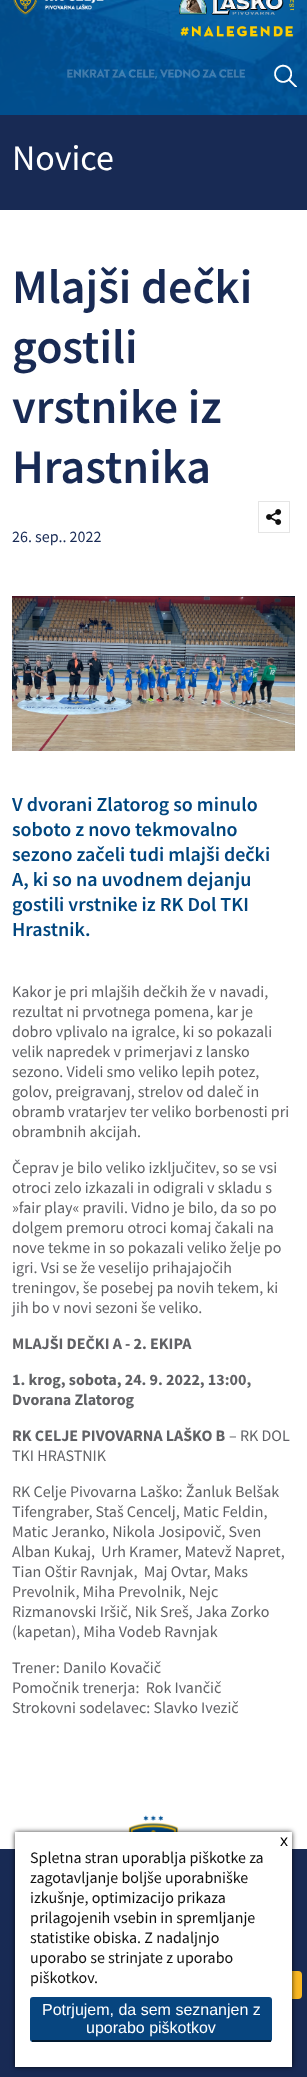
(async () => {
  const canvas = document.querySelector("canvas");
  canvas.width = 307;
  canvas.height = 2077;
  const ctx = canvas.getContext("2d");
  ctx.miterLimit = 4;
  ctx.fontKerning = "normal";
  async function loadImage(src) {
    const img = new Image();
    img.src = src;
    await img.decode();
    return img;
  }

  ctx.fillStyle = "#ffffff";
  ctx.fillRect(0, 0, 307, 2077);
  ctx.drawImage(await loadImage("img/1.png"), 0, 0, 307, 115);
  ctx.drawImage(await loadImage("img/2.png"), 13, 0, 91, 15);
  ctx.drawImage(await loadImage("img/3.png"), 179, 0, 116, 37);
  ctx.drawImage(await loadImage("img/4.png"), 67, 69, 178, 10);
  ctx.drawImage(await loadImage("img/5.png"), 274, 64, 23, 23);
  ctx.fillStyle = "#182a54";
  ctx.fillRect(0, 115, 307, 95);
  ctx.strokeStyle = "#e5e5e5";
  ctx.strokeRect(258.5, 501.5, 31, 31);
  ctx.drawImage(await loadImage("img/6.png"), 266, 509, 16, 16);
  ctx.drawImage(await loadImage("img/7.png"), 12, 596, 283, 155);
  ctx.fillRect(0, 1849, 307, 228);
  ctx.drawImage(await loadImage("img/8.png"), 128, 1815, 51, 17);
  ctx.fillStyle = "#f9b722";
  ctx.beginPath();
  ctx.roundRect(222, 1971, 80, 28, 4);
  ctx.fill();
  ctx.fillStyle = "rgba(0, 0, 0, 0.8)";
  ctx.filter = "blur(2.5px)";
  ctx.beginPath();
  ctx.rect(15, 1832, 277, 235);
  ctx.fill();
  ctx.filter = "none";
  ctx.fillStyle = "#ffffff";
  ctx.fillRect(15, 1832, 277, 235);
  ctx.fillStyle = "#07457f";
  ctx.beginPath();
  ctx.roundRect(30, 1997, 242, 45, 3);
  ctx.fill();
  ctx.fillStyle = "#021b33";
  ctx.fillRect(32, 2040, 239, 2);
  ctx.font = "36px Source Sans Pro";
  ctx.fillStyle = "#ffffff";
  ctx.fillText("Novice", 12, 170);
  ctx.font = "600 48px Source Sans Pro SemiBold";
  ctx.fillStyle = "#182a54";
  for (const [text, x, y] of [
    ["Mlajši dečki", 12, 303],
    ["gostili", 12, 363],
    ["vrstnike iz", 12, 423],
    ["Hrastnika", 12, 483],
  ]) {
    ctx.fillText(text, x, y);
  }
  ctx.font = "16px Source Sans Pro";
  ctx.fillText("26. sep.. 2022", 12, 542);
  ctx.font = "600 20px Source Sans Pro SemiBold";
  ctx.fillStyle = "#00467f";
  for (const [text, x, y] of [
    ["V dvorani Zlatorog so minulo", 12, 811],
    ["soboto z novo tekmovalno", 12, 836],
    ["sezono začeli tudi mlajši dečki", 12, 861],
    ["A, ki so na uvodnem dejanju", 12, 886],
    ["gostili vrstnike iz RK Dol TKI", 12, 911],
    ["Hrastnik.", 12, 936],
  ]) {
    ctx.fillText(text, x, y);
  }
  ctx.font = "16px Source Sans Pro";
  ctx.fillStyle = "#616266";
  for (const [text, x, y] of [
    ["Kakor je pri mlajših dečkih že v navadi,", 12, 997],
    ["rezultat ni prvotnega pomena, kar je", 12, 1017],
    ["dobro vplivalo na igralce, ki so pokazali", 12, 1037],
    ["velik napredek v primerjavi z lansko", 12, 1057],
    ["sezono. Videli smo veliko lepih potez,", 12, 1077],
    ["golov, preigravanj, strelov od daleč in", 12, 1097],
    ["obramb vratarjev ter veliko borbenosti pri", 12, 1117],
    ["obrambnih akcijah.", 12, 1137],
    ["Čeprav je bilo veliko izključitev, so se vsi", 12, 1173],
    ["otroci zelo izkazali in odigrali v skladu s", 12, 1193],
    ["»fair play« pravili. Vidno je bilo, da so po", 12, 1213],
    ["dolgem premoru otroci komaj čakali na", 12, 1233],
    ["nove tekme in so pokazali veliko želje po", 12, 1253],
    ["igri. Vsi se že veselijo prihajajočih", 12, 1273],
    ["treningov, še posebej pa novih tekem, ki", 12, 1293],
    ["jih bo v novi sezoni še veliko.", 12, 1313],
  ]) {
    ctx.fillText(text, x, y);
  }
  ctx.font = "bold 16px Source Sans Pro";
  for (const [text, x, y] of [
    ["MLAJŠI DEČKI A - 2. EKIPA", 12, 1349],
    ["1. krog, sobota, 24. 9. 2022, 13:00,", 12, 1385],
    ["Dvorana Zlatorog", 12, 1405],
    ["RK CELJE PIVOVARNA LAŠKO B", 12, 1441],
  ]) {
    ctx.fillText(text, x, y);
  }
  ctx.font = "16px Source Sans Pro";
  for (const [text, x, y] of [
    ["– RK DOL", 229, 1441],
    ["TKI HRASTNIK", 12, 1461],
    ["RK Celje Pivovarna Laško: Žanluk Belšak", 12, 1497],
    ["Tifengraber, Staš Cencelj, Matic Feldin,", 12, 1517],
    ["Matic Jeranko, Nikola Josipovič, Sven", 12, 1537],
    ["Alban Kukaj,  Urh Kramer, Matevž Napret,", 12, 1557],
    ["Tian Oštir Ravnjak,  Maj Ovtar, Maks", 12, 1577],
    ["Prevolnik, Miha Prevolnik, Nejc", 12, 1597],
    ["Rizmanovski Iršič, Nik Sreš, Jaka Zorko", 12, 1617],
    ["(kapetan), Miha Vodeb Ravnjak", 12, 1637],
    ["Trener: Danilo Kovačič", 12, 1673],
    ["Pomočnik trenerja:  Rok Ivančič", 12, 1693],
    ["Strokovni sodelavec: Slavko Ivezič", 12, 1713],
  ]) {
    ctx.fillText(text, x, y);
  }
  ctx.font = "16px Liberation Sans";
  ctx.fillStyle = "#000000";
  ctx.fillText("x", 280, 1846);
  ctx.font = "16px Source Sans Pro";
  ctx.fillStyle = "#111111";
  for (const [text, x, y] of [
    ["Spletna stran uporablja piškotke za", 30, 1863],
    ["zagotavljanje boljše uporabniške", 30, 1883],
    ["izkušnje, optimizacijo prikaza", 30, 1903],
    ["prilagojenih vsebin in spremljanje", 30, 1923],
    ["statistike obiska. Z nadaljnjo", 30, 1943],
    ["uporabo se strinjate z uporabo", 30, 1963],
    ["piškotkov.", 30, 1983],
  ]) {
    ctx.fillText(text, x, y);
  }
  ctx.font = "16px Liberation Sans";
  ctx.fillStyle = "#ffffff";
  ctx.fillText("Potrjujem, da sem seznanjen z", 42, 2015);
  ctx.fillText("uporabo piškotkov", 86, 2033);
})();
